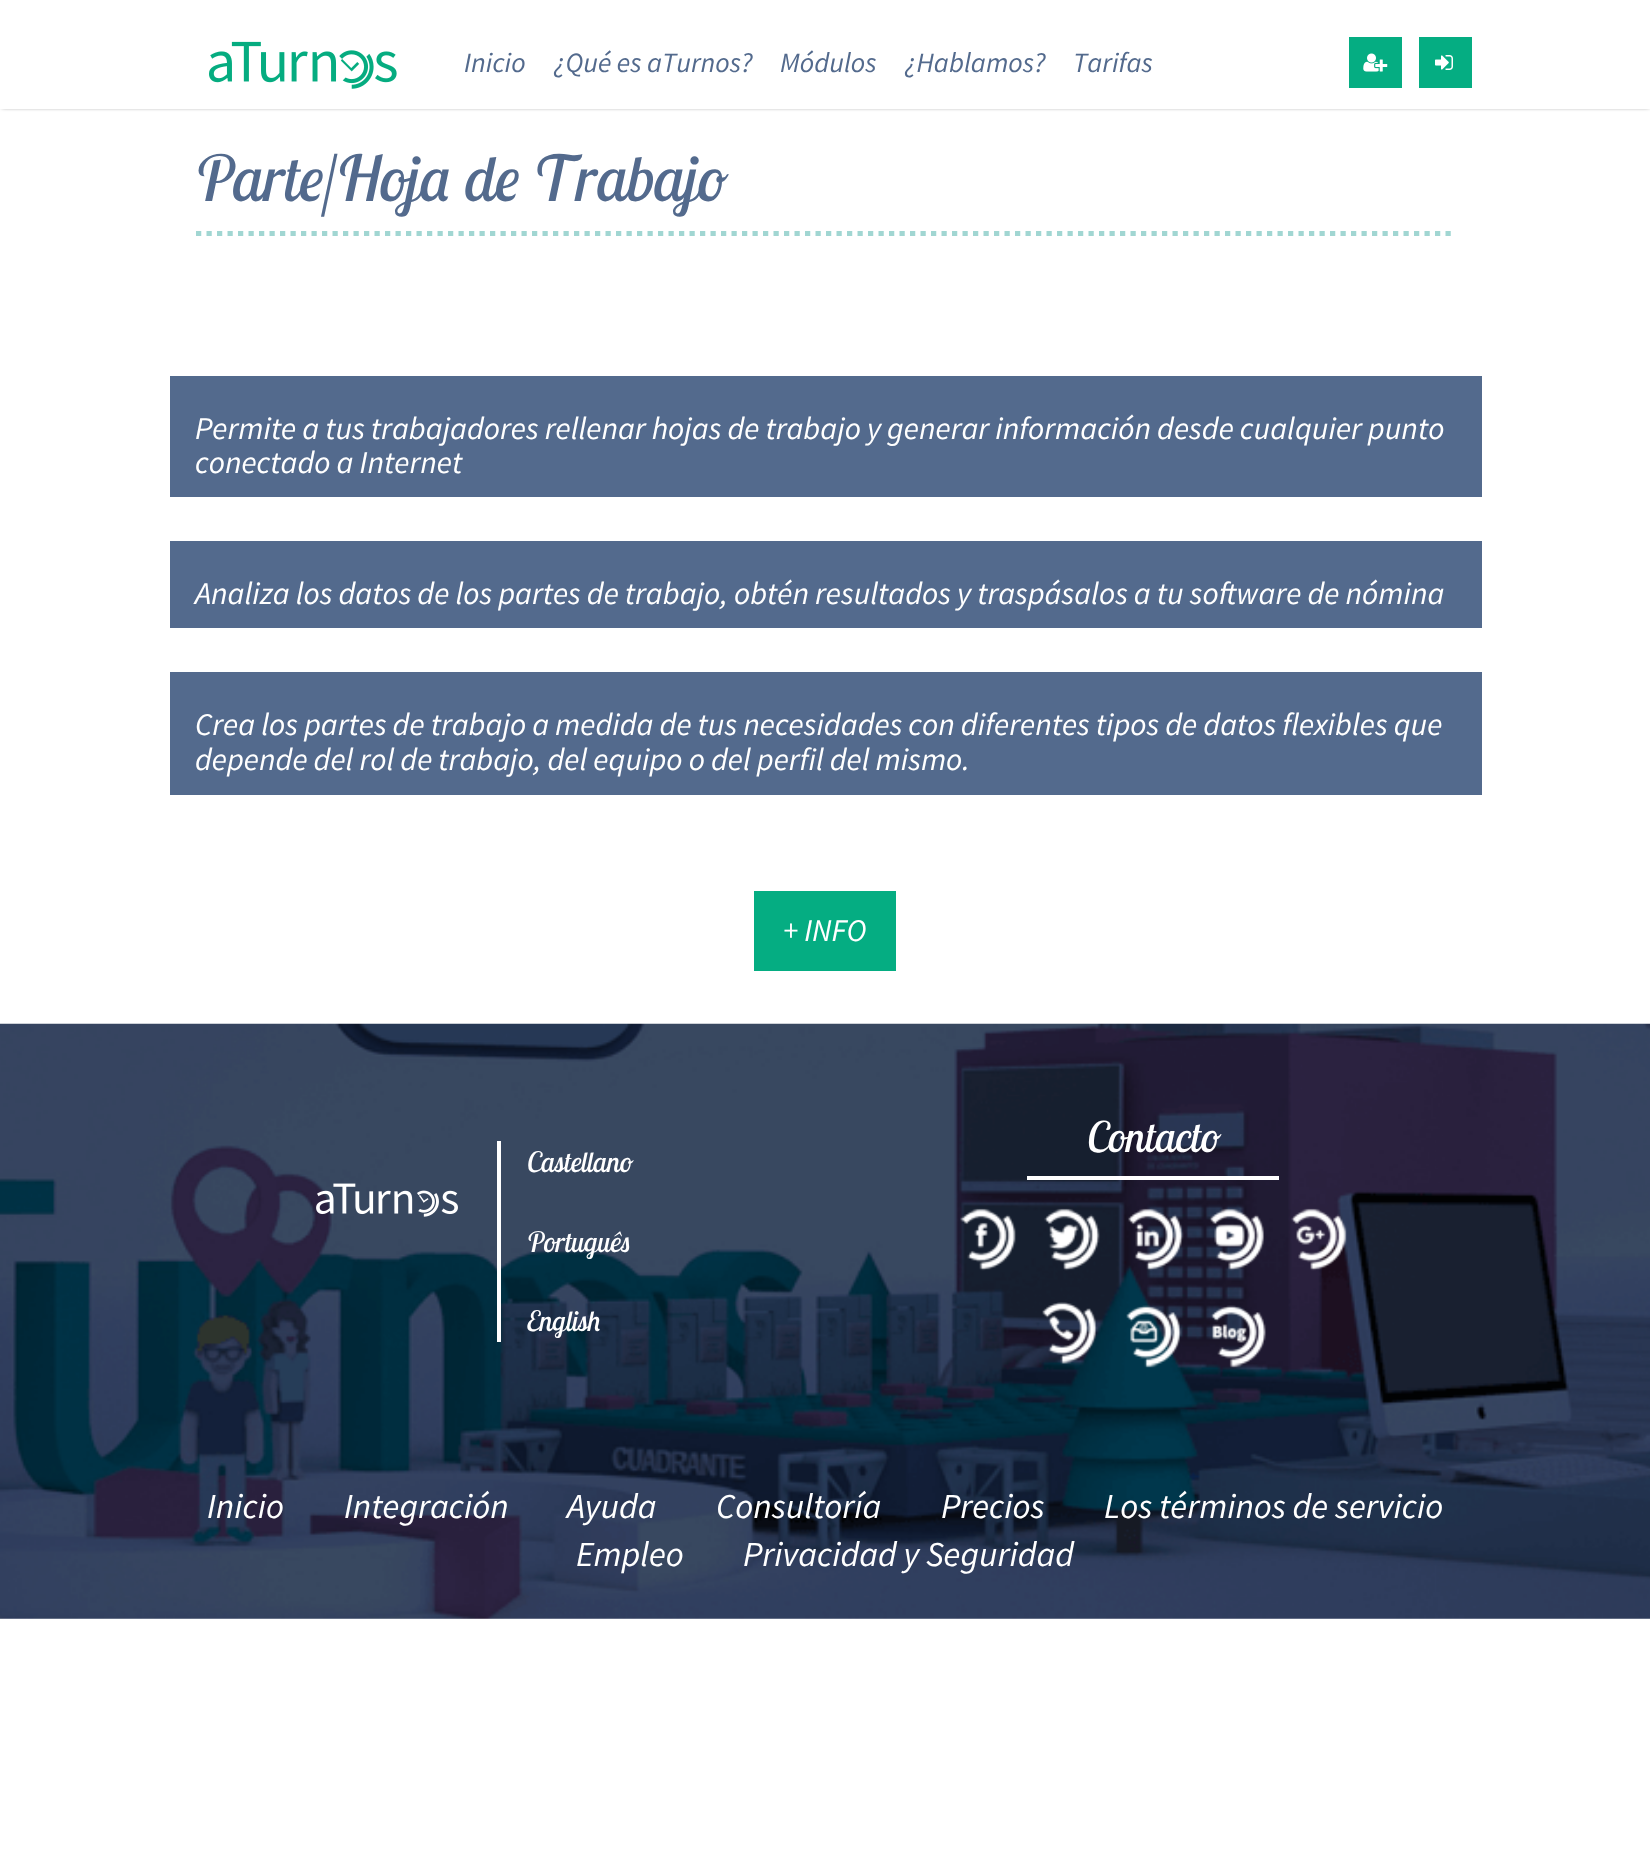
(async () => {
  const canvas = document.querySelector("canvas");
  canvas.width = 1650;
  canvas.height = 1852;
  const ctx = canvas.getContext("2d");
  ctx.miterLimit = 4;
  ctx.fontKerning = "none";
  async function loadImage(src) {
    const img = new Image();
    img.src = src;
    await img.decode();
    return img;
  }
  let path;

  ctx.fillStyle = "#ffffff";
  ctx.fillRect(0, 0, 1650, 1852);
  ctx.save();
  path = new Path2D("M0 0H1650V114H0ZM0 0H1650V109H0Z");
  ctx.clip(path, "evenodd");
  ctx.fillStyle = "rgba(0, 0, 0, 0.75)";
  ctx.filter = "blur(2px)";
  ctx.beginPath();
  ctx.rect(2, 2, 1647, 105);
  ctx.fill();
  ctx.filter = "none";
  ctx.restore();
  ctx.fillStyle = "rgba(255, 255, 255, 0.9)";
  ctx.fillRect(0, 108, 1650, 1);
  ctx.drawImage(await loadImage("img/1.png"), 209, 41, 188, 48);
  ctx.fillStyle = "#05ad82";
  ctx.fillRect(1349, 37, 53, 51);
  ctx.drawImage(await loadImage("img/2.png"), 1363, 53, 25, 19);
  ctx.fillRect(1419, 37, 53, 51);
  ctx.drawImage(await loadImage("img/3.png"), 1435, 55, 18, 15);
  path = new Path2D("M196 233.5H1456");
  ctx.strokeStyle = "#a1d6d2";
  ctx.lineWidth = 5.2;
  ctx.setLineDash([5.25, 5.25]);
  ctx.stroke(path);
  for (const [x, y, w, h, color] of [
    [170, 376, 1312, 121, "#536a8d"],
    [170, 541, 1312, 87, "#536a8d"],
    [170, 672, 1312, 123, "#536a8d"],
    [754, 891, 142, 80, "#05ad82"],
  ]) {
    ctx.fillStyle = color;
    ctx.fillRect(x, y, w, h);
  }
  ctx.drawImage(await loadImage("img/4.png"), 0, 1023, 1650, 596);
  ctx.fillStyle = "#ffffff";
  ctx.fillRect(1027, 1176, 252, 4);
  ctx.drawImage(await loadImage("img/5.png"), 960, 1208, 56, 63);
  ctx.drawImage(await loadImage("img/6.png"), 1044, 1208, 56, 63);
  ctx.drawImage(await loadImage("img/7.png"), 1128, 1208, 56, 63);
  ctx.drawImage(await loadImage("img/8.png"), 1209, 1208, 55, 63);
  ctx.drawImage(await loadImage("img/9.png"), 1291, 1208, 56, 63);
  ctx.drawImage(await loadImage("img/10.png"), 1042, 1302, 56, 62);
  ctx.drawImage(await loadImage("img/11.png"), 1126, 1305, 56, 63);
  ctx.drawImage(await loadImage("img/12.png"), 1210, 1305, 56, 63);
  ctx.drawImage(await loadImage("img/13.png"), 316, 1183, 142, 34);
  ctx.fillRect(497, 1141, 4, 201);
  ctx.font = "italic 28px Source Sans Pro";
  ctx.fillStyle = "#536a8d";
  for (const [text, x, y] of [
    ["Inicio", 464, 72],
    ["¿Qué es aTurnos?", 554, 72],
    ["Módulos", 780, 72],
    ["¿Hablamos?", 905, 72],
    ["Tarifas", 1073, 72],
  ]) {
    ctx.fillText(text, x, y);
  }
  ctx.font = "italic 63px Lobster Two";
  ctx.fillText("Parte/Hoja de Trabajo", 195, 201);
  ctx.font = "italic 31.5px Source Sans Pro";
  ctx.fillStyle = "#ffffff";
  for (const [text, x, y] of [
    ["Permite a tus trabajadores rellenar hojas de trabajo y generar información desde cualquier punto", 195, 439],
    ["conectado a Internet", 195, 473],
    ["Analiza los datos de los partes de trabajo, obtén resultados y traspásalos a tu software de nómina", 195, 604],
    ["Crea los partes de trabajo a medida de tus necesidades con diferentes tipos de datos flexibles que", 195, 735],
    ["depende del rol de trabajo, del equipo o del perfil del mismo.", 195, 770],
    ["+ INFO", 783, 941],
  ]) {
    ctx.fillText(text, x, y);
  }
  ctx.font = "italic 42px Lobster Two";
  ctx.fillText("Contacto", 1087, 1152);
  ctx.font = "italic 28px Lobster Two";
  for (const [text, x, y] of [
    ["Castellano", 527, 1172],
    ["Português", 527, 1252],
    ["English", 527, 1331],
  ]) {
    ctx.fillText(text, x, y);
  }
  ctx.font = "italic 35px Source Sans Pro";
  for (const [text, x, y] of [
    ["Inicio", 207, 1518],
    ["Integración", 344, 1518],
    ["Ayuda", 567, 1518],
    ["Consultoría", 716, 1518],
    ["Precios", 941, 1518],
    ["Los términos de servicio", 1104, 1518],
    ["Empleo", 576, 1566],
    ["Privacidad y Seguridad", 743, 1566],
  ]) {
    ctx.fillText(text, x, y);
  }
})();
